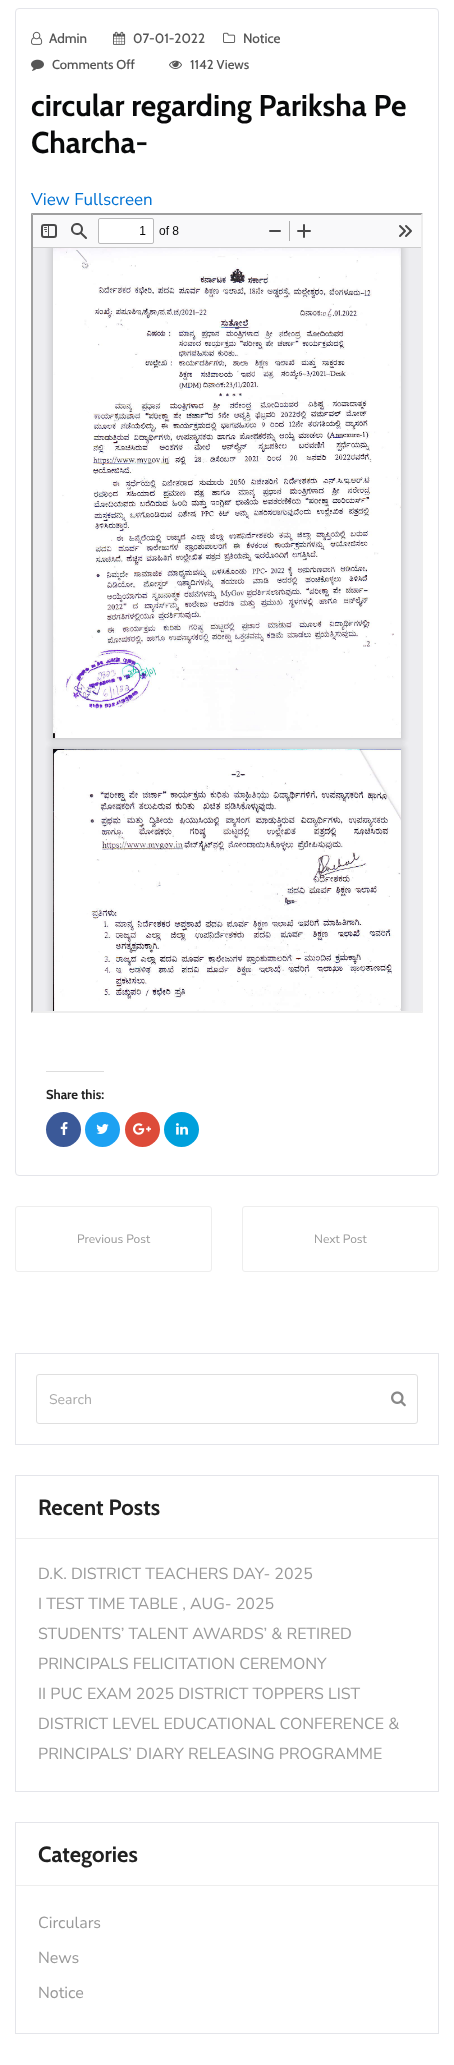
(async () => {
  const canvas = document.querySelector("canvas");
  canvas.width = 454;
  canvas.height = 2065;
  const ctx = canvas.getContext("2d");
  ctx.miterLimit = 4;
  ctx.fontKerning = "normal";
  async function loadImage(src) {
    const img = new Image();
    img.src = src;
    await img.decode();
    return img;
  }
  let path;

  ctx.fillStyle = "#ffffff";
  ctx.fillRect(0, 0, 454, 2065);
  ctx.beginPath();
  ctx.roundRect(15.5, 8.5, 423, 1167, 3.5);
  ctx.strokeStyle = "#e4e5ea";
  ctx.stroke();
  ctx.drawImage(await loadImage("img/1.png"), 31, 31, 12, 14);
  ctx.drawImage(await loadImage("img/2.png"), 113, 31, 13, 14);
  ctx.drawImage(await loadImage("img/3.png"), 223, 32, 13, 11);
  ctx.drawImage(await loadImage("img/4.png"), 31, 59, 13, 12);
  ctx.drawImage(await loadImage("img/5.png"), 169, 60, 13, 9);
  ctx.fillStyle = "#9f9f9f";
  path = new Path2D("M31 213H423L421 215H33Z");
  ctx.fill(path);
  ctx.fillStyle = "#eeeeee";
  path = new Path2D("M423 213V1013L421 1011V215Z");
  ctx.fill(path);
  path = new Path2D("M423 1013H31L33 1011H421Z");
  ctx.fill(path);
  ctx.fillStyle = "#9f9f9f";
  path = new Path2D("M31 1013V213L33 215V1011Z");
  ctx.fill(path);
  ctx.drawImage(await loadImage("img/6.png"), 33, 215, 388, 796);
  ctx.fillStyle = "#dddddd";
  ctx.fillRect(46, 1071, 58, 1);
  ctx.fillStyle = "#3b5998";
  ctx.beginPath();
  ctx.arc(63.5, 1129.5, 17.5, 0, Math.PI * 2);
  ctx.fill();
  ctx.drawImage(await loadImage("img/7.png"), 60, 1122, 8, 13);
  ctx.fillStyle = "#1da1f2";
  ctx.beginPath();
  ctx.arc(102.5, 1129.5, 17.5, 0, Math.PI * 2);
  ctx.fill();
  ctx.drawImage(await loadImage("img/8.png"), 96, 1124, 13, 10);
  ctx.fillStyle = "#dd4b39";
  ctx.beginPath();
  ctx.arc(142.5, 1129.5, 17.5, 0, Math.PI * 2);
  ctx.fill();
  ctx.drawImage(await loadImage("img/9.png"), 133, 1123, 18, 12);
  ctx.fillStyle = "#00a0dc";
  ctx.beginPath();
  ctx.arc(181.5, 1129.5, 17.5, 0, Math.PI * 2);
  ctx.fill();
  ctx.drawImage(await loadImage("img/10.png"), 176, 1123, 12, 12);
  ctx.beginPath();
  ctx.roundRect(15.5, 1206.5, 196, 65, 2.5);
  ctx.strokeStyle = "#eeeeee";
  ctx.stroke();
  ctx.beginPath();
  ctx.roundRect(242.5, 1206.5, 196, 65, 2.5);
  ctx.stroke();
  ctx.strokeStyle = "#e4e5ea";
  ctx.strokeRect(15.5, 1353.5, 423, 91);
  ctx.beginPath();
  ctx.roundRect(36.5, 1374.5, 381, 49, 2.5);
  ctx.strokeStyle = "#dfdfdf";
  ctx.stroke();
  ctx.drawImage(await loadImage("img/11.png"), 391, 1391, 15, 16);
  ctx.strokeStyle = "#e4e5ea";
  ctx.strokeRect(15.5, 1475.5, 423, 316);
  ctx.fillStyle = "#eeeeee";
  ctx.fillRect(16, 1538, 422, 1);
  ctx.strokeRect(15.5, 1822.5, 423, 211);
  ctx.fillRect(16, 1885, 422, 1);
  ctx.font = "500 13.5px Cabin";
  ctx.fillStyle = "#565656";
  for (const [text, x, y] of [
    ["Admin", 49, 43],
    ["07-01-2022", 133, 43],
    ["Notice", 243, 43],
  ]) {
    ctx.fillText(text, x, y);
  }
  ctx.font = "500 13px Cabin";
  ctx.fillText("Comments Off", 52, 69);
  ctx.fillText("1142 Views", 190, 69);
  ctx.font = "bold 30px Cabin";
  ctx.fillStyle = "#090a0b";
  ctx.fillText("circular regarding Pariksha Pe", 31, 116);
  ctx.fillText("Charcha-", 31, 153);
  ctx.font = "17px Nunito Sans";
  ctx.fillStyle = "#0072d3";
  ctx.fillText("View Fullscreen", 31, 205);
  ctx.font = "bold 13px Cabin";
  ctx.fillStyle = "#212121";
  ctx.fillText("Share this:", 46, 1099);
  ctx.font = "12px Nunito Sans";
  ctx.fillStyle = "#999999";
  ctx.fillText("Previous Post", 77, 1243);
  ctx.fillText("Next Post", 314, 1243);
  ctx.font = "14px Nunito Sans";
  ctx.fillStyle = "#aaaaaa";
  ctx.fillText("Search", 49, 1404);
  ctx.font = "bold 22px Cabin";
  ctx.fillStyle = "#212121";
  ctx.fillText("Recent Posts", 38, 1515);
  ctx.font = "16px Nunito Sans";
  ctx.fillStyle = "#999999";
  for (const [text, x, y] of [
    ["D.K. DISTRICT TEACHERS DAY- 2025", 38, 1579],
    ["I TEST TIME TABLE , AUG- 2025", 38, 1609],
    ["STUDENTS’ TALENT AWARDS’ & RETIRED", 38, 1639],
    ["PRINCIPALS FELICITATION CEREMONY", 38, 1669],
    ["II PUC EXAM 2025 DISTRICT TOPPERS LIST", 38, 1699],
    ["DISTRICT LEVEL EDUCATIONAL CONFERENCE &", 38, 1729],
    ["PRINCIPALS’ DIARY RELEASING PROGRAMME", 38, 1759],
  ]) {
    ctx.fillText(text, x, y);
  }
  ctx.font = "bold 22px Cabin";
  ctx.fillStyle = "#212121";
  ctx.fillText("Categories", 38, 1862);
  ctx.font = "16px Nunito Sans";
  ctx.fillStyle = "#999999";
  for (const [text, x, y] of [
    ["Circulars", 38, 1928],
    ["News", 38, 1963],
    ["Notice", 38, 1998],
  ]) {
    ctx.fillText(text, x, y);
  }
})();
